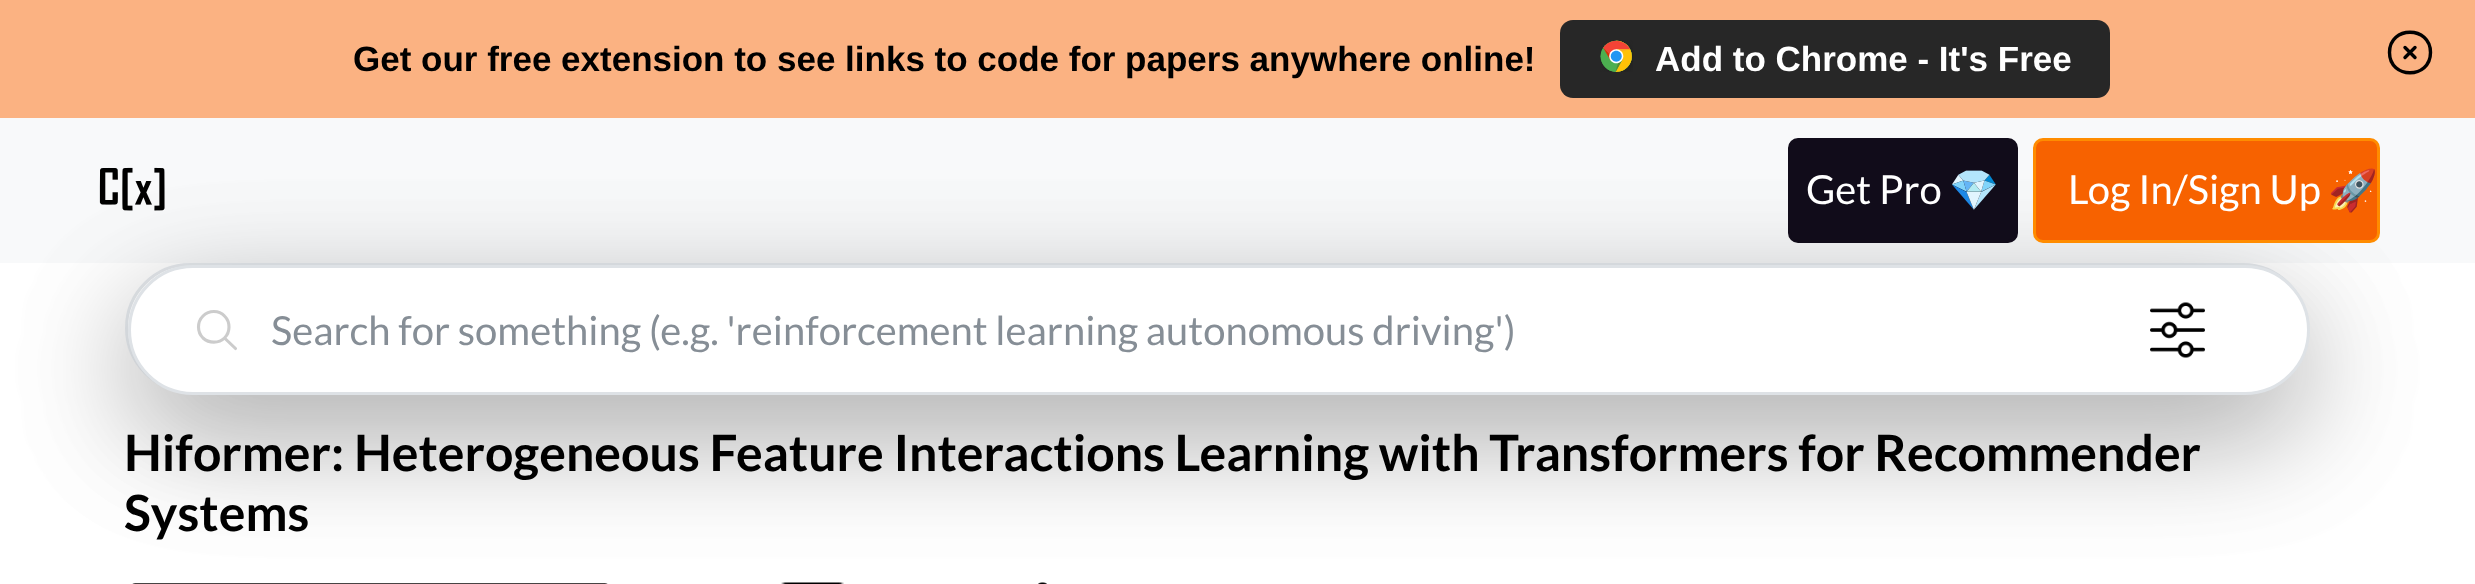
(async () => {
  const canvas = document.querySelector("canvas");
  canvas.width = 2475;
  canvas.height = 584;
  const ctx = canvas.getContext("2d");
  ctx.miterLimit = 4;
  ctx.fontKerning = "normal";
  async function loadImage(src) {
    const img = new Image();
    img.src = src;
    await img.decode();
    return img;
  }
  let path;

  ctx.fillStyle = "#ffffff";
  ctx.fillRect(0, 0, 2475, 584);
  ctx.fillStyle = "#fbb282";
  ctx.fillRect(0, 0, 2475, 118);
  ctx.fillStyle = "#272727";
  ctx.beginPath();
  ctx.roundRect(1560, 20, 550, 78, 13);
  ctx.fill();
  ctx.drawImage(await loadImage("img/1.png"), 1600, 40, 33, 32);
  path = new Path2D("M2405 47.5L2415 57.5M2415 47.5L2405 57.5M2430.5 52.5C2430.5 79.5 2389.5 79.5 2389.5 52.5C2389.5 25.5 2430.5 25.5 2430.5 52.5Z");
  ctx.strokeStyle = "#000000";
  ctx.lineWidth = 3.4;
  ctx.lineCap = "round";
  ctx.lineJoin = "round";
  ctx.stroke(path);
  ctx.fillStyle = "#f8f9fa";
  ctx.fillRect(0, 118, 2475, 145);
  ctx.fillStyle = "rgba(0, 0, 0, 0.18)";
  ctx.filter = "blur(60px)";
  ctx.beginPath();
  ctx.roundRect(125, 303, 2183, 130, 65);
  ctx.fill();
  ctx.filter = "none";
  ctx.fillStyle = "#ffffff";
  ctx.beginPath();
  ctx.roundRect(126.5, 264.5, 2180, 127, 63.5);
  ctx.fill();
  ctx.strokeStyle = "#dee2e6";
  ctx.lineWidth = 3;
  ctx.lineJoin = "miter";
  ctx.stroke();
  ctx.fillStyle = "rgba(0, 0, 0, 0.18)";
  ctx.filter = "blur(60px)";
  ctx.beginPath();
  ctx.roundRect(128, 305, 2182, 130, 65);
  ctx.fill();
  ctx.filter = "none";
  ctx.drawImage(await loadImage("img/2.png"), 99, 167, 66, 44);
  ctx.fillStyle = "#110c1a";
  ctx.beginPath();
  ctx.roundRect(1789.5, 139.5, 227, 102, 8.5);
  ctx.fill();
  ctx.strokeStyle = "#110c1a";
  ctx.stroke();
  ctx.fillStyle = "#f76200";
  ctx.beginPath();
  ctx.roundRect(2034.5, 139.5, 344, 102, 8.5);
  ctx.fill();
  ctx.strokeStyle = "#ff8c00";
  ctx.stroke();
  ctx.fillStyle = "#ffffff";
  ctx.beginPath();
  ctx.roundRect(129.5, 266.5, 2179, 127, 63.5);
  ctx.fill();
  ctx.strokeStyle = "#dee2e6";
  ctx.stroke();
  path = new Path2D("M235.5 348.5L224.5 338M224.5 338C230.5 332 230.5 322 224.5 316C219 310 209 310 203 316C197 322 197 332 203 338C209 343.5 219 343.5 224.5 338Z");
  ctx.strokeStyle = "#cccccc";
  ctx.lineWidth = 3.1;
  ctx.lineJoin = "round";
  ctx.stroke(path);
  ctx.drawImage(await loadImage("img/3.png"), 2150, 302, 55, 56);
  ctx.fillStyle = "#484444";
  ctx.beginPath();
  ctx.roundRect(130, 583, 480, 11, 10);
  ctx.fill();
  ctx.drawImage(await loadImage("img/4.png"), 781, 582, 63, 2);
  ctx.drawImage(await loadImage("img/5.png"), 1038, 582, 9, 2);
  ctx.font = "bold 35px Liberation Sans";
  ctx.fillStyle = "#000000";
  ctx.fillText("Get our free extension to see links to code for papers anywhere online!", 353, 71);
  ctx.fillStyle = "#ffffff";
  ctx.fillText("Add to Chrome - It's Free", 1655, 71);
  ctx.font = "40px Lato";
  ctx.fillText("Get Pro", 1806, 204);
  ctx.font = "40px Noto Color Emoji";
  ctx.fillText("💎", 1949, 204);
  ctx.font = "40px Lato";
  ctx.fillText("Log In/Sign Up", 2068, 204);
  ctx.font = "40px Noto Color Emoji";
  ctx.fillText("🚀", 2328, 204);
  ctx.font = "40px Lato";
  ctx.fillStyle = "#868e96";
  ctx.fillText("Search for something (e.g. 'reinforcement learning autonomous driving')", 271, 345);
  ctx.font = "bold 50px Lato";
  ctx.fillStyle = "#000000";
  ctx.fillText("Hiformer: Heterogeneous Feature Interactions Learning with Transformers for Recommender", 124, 471);
  ctx.fillText("Systems", 124, 531);
})();
